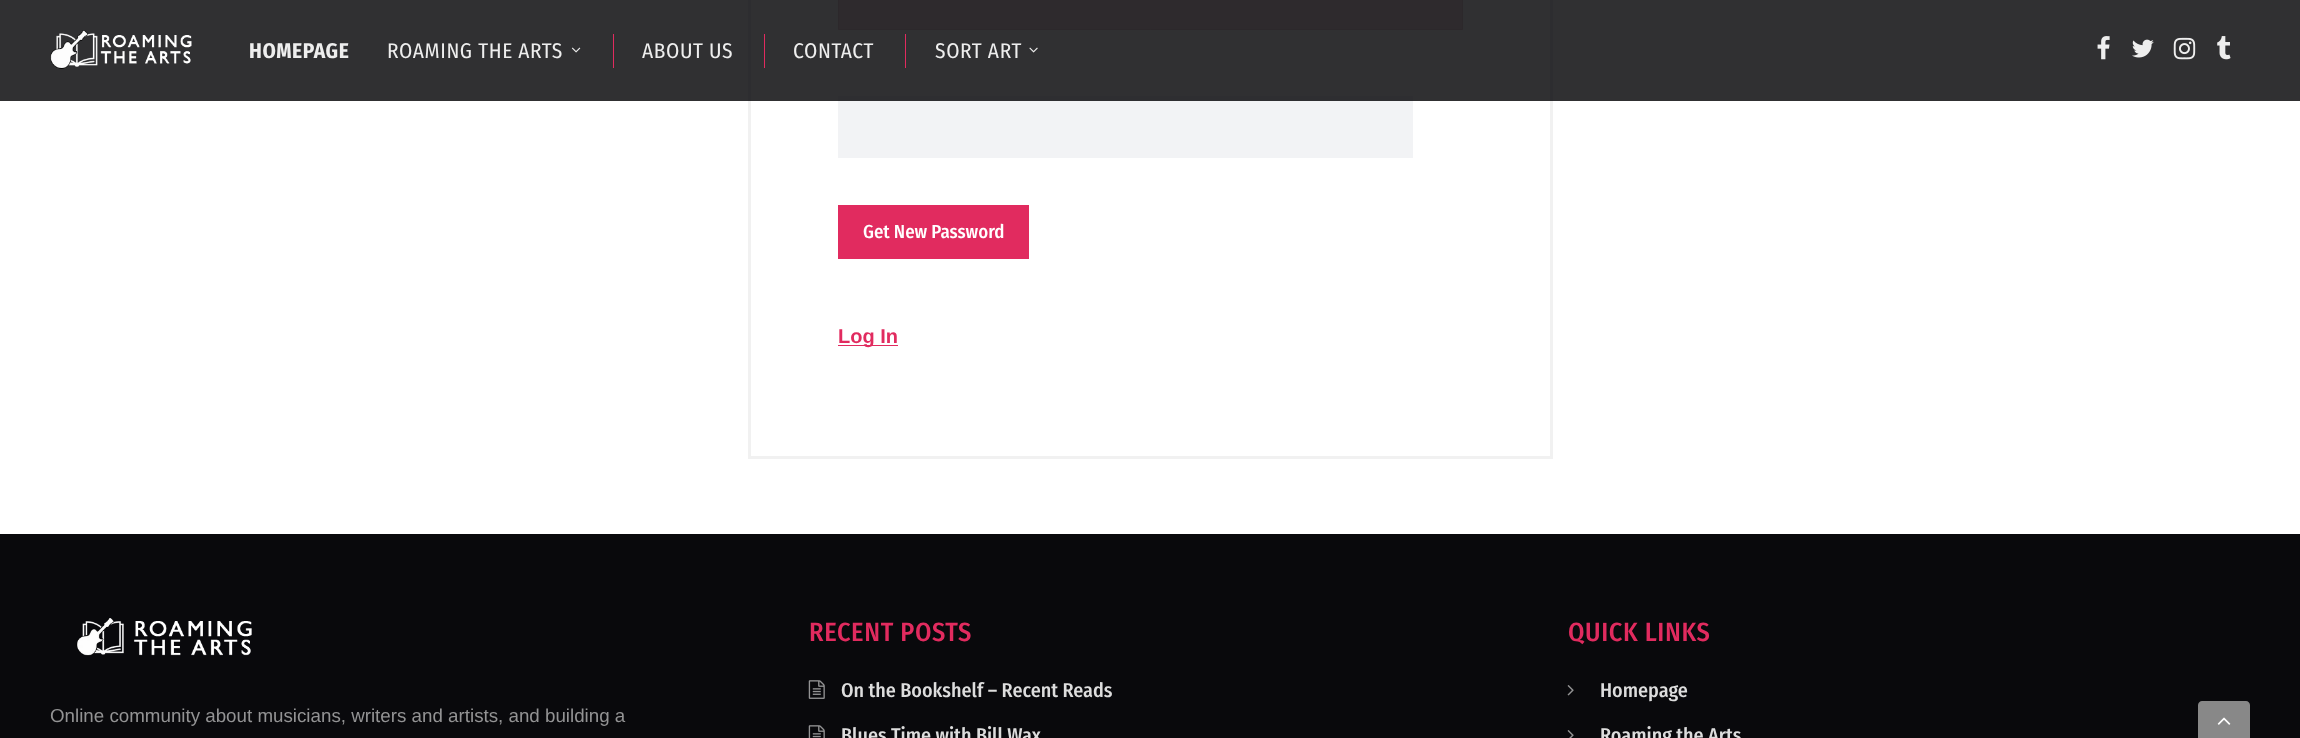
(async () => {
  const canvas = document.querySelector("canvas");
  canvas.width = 2300;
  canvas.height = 738;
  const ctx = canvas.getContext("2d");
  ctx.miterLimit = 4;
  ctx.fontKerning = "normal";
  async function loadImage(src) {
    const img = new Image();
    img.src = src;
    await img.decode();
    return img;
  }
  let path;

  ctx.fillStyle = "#ffffff";
  ctx.fillRect(0, 0, 2300, 738);
  ctx.strokeStyle = "#f1f1f1";
  ctx.lineWidth = 3;
  ctx.strokeRect(749.5, -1.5, 802, 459);
  ctx.fillStyle = "#f2dede";
  ctx.beginPath();
  ctx.rect(838.5, -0.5, 624, 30);
  ctx.fill();
  ctx.strokeStyle = "#ebccd1";
  ctx.lineWidth = 1;
  ctx.stroke();
  for (const [x, y, w, h, color] of [
    [838, 96, 575, 62, "#f2f3f5"],
    [0, 0, 2300, 101, "rgba(9, 9, 12, 0.6)"],
    [0, 0, 2300, 101, "rgba(9, 9, 12, 0.6)"],
  ]) {
    ctx.fillStyle = color;
    ctx.fillRect(x, y, w, h);
  }
  ctx.drawImage(await loadImage("img/1.png"), 50, 30, 142, 39);
  ctx.drawImage(await loadImage("img/2.png"), 571, 47, 10, 6);
  for (const [x, y, w, h, color] of [
    [613, 34, 1, 34, "#e12b5f"],
    [764, 34, 1, 34, "#e12b5f"],
    [905, 34, 1, 34, "#e12b5f"],
  ]) {
    ctx.fillStyle = color;
    ctx.fillRect(x, y, w, h);
  }
  ctx.drawImage(await loadImage("img/3.png"), 1029, 47, 9, 6);
  ctx.drawImage(await loadImage("img/4.png"), 2097, 36, 13, 24);
  ctx.drawImage(await loadImage("img/5.png"), 2132, 39, 22, 19);
  ctx.drawImage(await loadImage("img/6.png"), 2173, 37, 23, 23);
  ctx.drawImage(await loadImage("img/7.png"), 2217, 36, 14, 24);
  for (const [x, y, w, h, color] of [
    [838, 205, 191, 54, "#e12b5f"],
    [838, 345, 60, 1, "#e12b5f"],
    [0, 534, 2300, 204, "#09090c"],
  ]) {
    ctx.fillStyle = color;
    ctx.fillRect(x, y, w, h);
  }
  ctx.drawImage(await loadImage("img/8.png"), 76, 618, 176, 38);
  ctx.drawImage(await loadImage("img/9.png"), 808, 680, 17, 19);
  ctx.drawImage(await loadImage("img/10.png"), 808, 725, 17, 13);
  ctx.drawImage(await loadImage("img/11.png"), 1567, 685, 7, 11);
  ctx.drawImage(await loadImage("img/12.png"), 1567, 730, 7, 8);
  ctx.fillStyle = "#888888";
  path = new Path2D("M2202 701H2246C2248 701 2250 703 2250 705V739H2198V705C2198 703 2200 701 2202 701Z");
  ctx.fill(path);
  ctx.drawImage(await loadImage("img/13.png"), 2217, 717, 14, 8);
  ctx.letterSpacing = "0.6px";
  ctx.font = "bold 21.25px Fira Sans Condensed";
  ctx.fillStyle = "#eeeeee";
  ctx.fillText("HOMEPAGE", 249, 58);
  ctx.font = "21.25px Fira Sans Condensed";
  for (const [text, x, y] of [
    ["ROAMING THE ARTS", 387, 58],
    ["ABOUT US", 642, 58],
    ["CONTACT", 793, 58],
    ["SORT ART", 935, 58],
  ]) {
    ctx.fillText(text, x, y);
  }
  ctx.letterSpacing = "0px";
  ctx.font = "500 18.75px Fira Sans Condensed";
  ctx.fillStyle = "#ffffff";
  ctx.fillText("Get New Password", 863, 238);
  ctx.font = "bold 20px Arimo";
  ctx.fillStyle = "#e12b5f";
  ctx.fillText("Log In", 838, 343);
  ctx.font = "18.75px Arimo";
  ctx.fillStyle = "#939394";
  ctx.fillText("Online community about musicians, writers and artists, and building a", 50, 722);
  ctx.letterSpacing = "0.6px";
  ctx.font = "500 26.25px Fira Sans Condensed";
  ctx.fillStyle = "#e12b5f";
  ctx.fillText("RECENT POSTS", 809, 641);
  ctx.letterSpacing = "0px";
  ctx.font = "500 20px Fira Sans Condensed";
  ctx.fillStyle = "#dddddd";
  ctx.fillText("On the Bookshelf – Recent Reads", 841, 697);
  ctx.fillText("Blues Time with Bill Wax", 841, 742);
  ctx.letterSpacing = "0.6px";
  ctx.font = "500 26.25px Fira Sans Condensed";
  ctx.fillStyle = "#e12b5f";
  ctx.fillText("QUICK LINKS", 1568, 641);
  ctx.letterSpacing = "0px";
  ctx.font = "500 20px Fira Sans Condensed";
  ctx.fillStyle = "#dddddd";
  ctx.fillText("Homepage", 1600, 697);
  ctx.fillText("Roaming the Arts", 1600, 742);
})();
